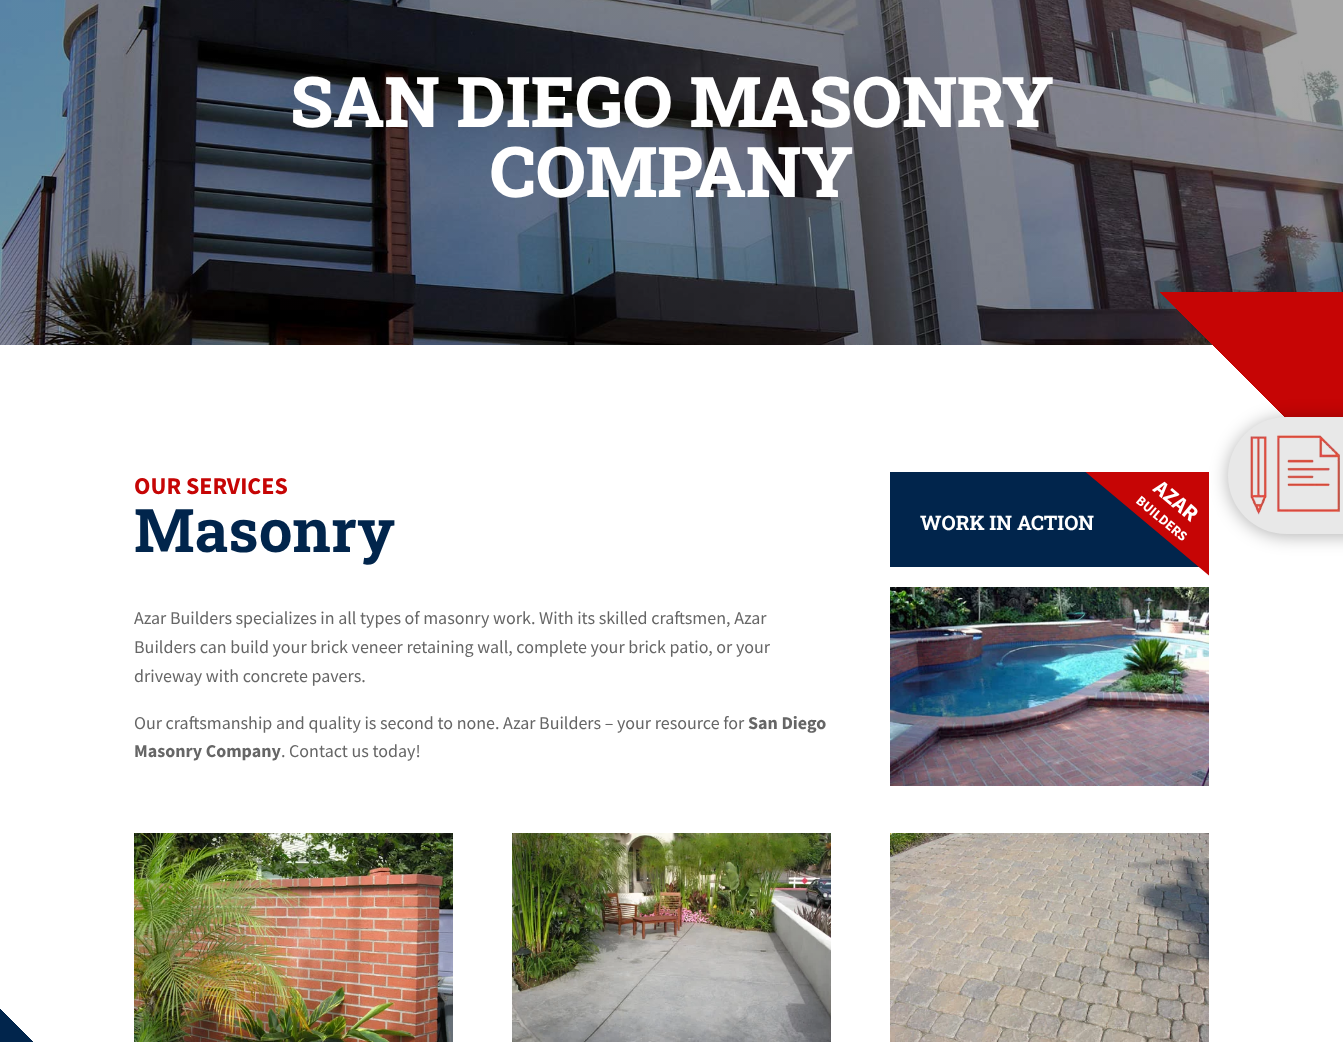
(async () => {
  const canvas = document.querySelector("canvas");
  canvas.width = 1343;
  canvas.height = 1042;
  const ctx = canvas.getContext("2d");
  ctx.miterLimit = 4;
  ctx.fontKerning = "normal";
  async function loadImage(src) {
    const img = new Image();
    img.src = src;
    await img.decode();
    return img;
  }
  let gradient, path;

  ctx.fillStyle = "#ffffff";
  ctx.fillRect(0, 0, 1343, 1042);
  ctx.drawImage(await loadImage("img/1.png"), 0, 0, 1343, 345);
  gradient = ctx.createLinearGradient(1343, 292, 1143, 492);
  gradient.addColorStop(0.46, "#c60505");
  gradient.addColorStop(0.46, "rgba(198, 5, 5, 0)");
  ctx.fillStyle = gradient;
  ctx.fillRect(1160, 292, 183, 126);
  ctx.fillStyle = "#01254c";
  ctx.fillRect(890, 472, 309, 95);
  ctx.drawImage(await loadImage("img/2.png"), 890, 587, 319, 199);
  gradient = ctx.createLinearGradient(0, 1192, 200, 992);
  gradient.addColorStop(0.46, "#01254c");
  gradient.addColorStop(0.46, "rgba(1, 37, 76, 0)");
  ctx.fillStyle = gradient;
  ctx.fillRect(0, 1008, 34, 34);
  ctx.drawImage(await loadImage("img/3.png"), 134, 833, 319, 209);
  ctx.drawImage(await loadImage("img/4.png"), 512, 833, 319, 209);
  ctx.drawImage(await loadImage("img/5.png"), 890, 833, 319, 209);
  ctx.font = "800 70px Roboto Slab";
  ctx.fillStyle = "#ffffff";
  ctx.fillText("SAN DIEGO MASONRY", 290, 127);
  ctx.fillText("COMPANY", 490, 197);
  ctx.font = "bold 24px Source Sans Pro";
  ctx.fillStyle = "#c60505";
  ctx.fillText("OUR SERVICES", 134, 494);
  ctx.font = "bold 60px Roboto Slab";
  ctx.fillStyle = "#01254c";
  ctx.fillText("Masonry", 134, 552);
  ctx.font = "18px Source Sans Pro";
  ctx.fillStyle = "#666666";
  for (const [text, x, y] of [
    ["Azar Builders specializes in all types of masonry work. With its skilled craftsmen, Azar", 134, 624],
    ["Builders can build your brick veneer retaining wall, complete your brick patio, or your", 134, 653],
    ["driveway with concrete pavers.", 134, 682],
    ["Our craftsmanship and quality is second to none. Azar Builders – your resource for", 134, 729],
  ]) {
    ctx.fillText(text, x, y);
  }
  ctx.font = "bold 18px Source Sans Pro";
  ctx.fillText("San Diego", 748, 729);
  ctx.fillText("Masonry Company", 134, 757);
  ctx.font = "18px Source Sans Pro";
  ctx.fillText(". Contact us today!", 281, 757);
  ctx.font = "bold 20px Roboto Slab";
  ctx.fillStyle = "#ffffff";
  ctx.fillText("WORK IN ACTION", 920, 530);
  ctx.save();
  ctx.beginPath();
  ctx.rect(890, 472, 319, 314);
  ctx.clip();
  ctx.fillStyle = "#c60505";
  path = new Path2D("M1128 403L1281 532L1230 593L1076 464Z");
  ctx.fill(path);
  ctx.restore();
  ctx.font = "bold 22px Source Sans Pro";
  ctx.save();
  ctx.translate(1152, 490);
  ctx.rotate(40 * Math.PI / 180);
  ctx.fillText("AZAR", 0, 0);
  ctx.restore();
  ctx.font = "bold 14px Source Sans Pro";
  ctx.save();
  ctx.translate(1135, 502);
  ctx.rotate(40 * Math.PI / 180);
  ctx.fillText("BUILDERS", 0, 0);
  ctx.restore();
  ctx.fillStyle = "rgba(0, 0, 0, 0.3)";
  ctx.filter = "blur(9px)";
  ctx.beginPath();
  ctx.roundRect(1228, 419, 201, 117, 58.5);
  ctx.fill();
  ctx.filter = "none";
  ctx.fillStyle = "#e8e8e8";
  path = new Path2D("M1286.5 417H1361V534H1286.5C1254 534 1228 508 1228 475.5C1228 443 1254 417 1286.5 417Z");
  ctx.fill(path);
  ctx.drawImage(await loadImage("img/6.png"), 1250, 435, 90, 80);
})();
